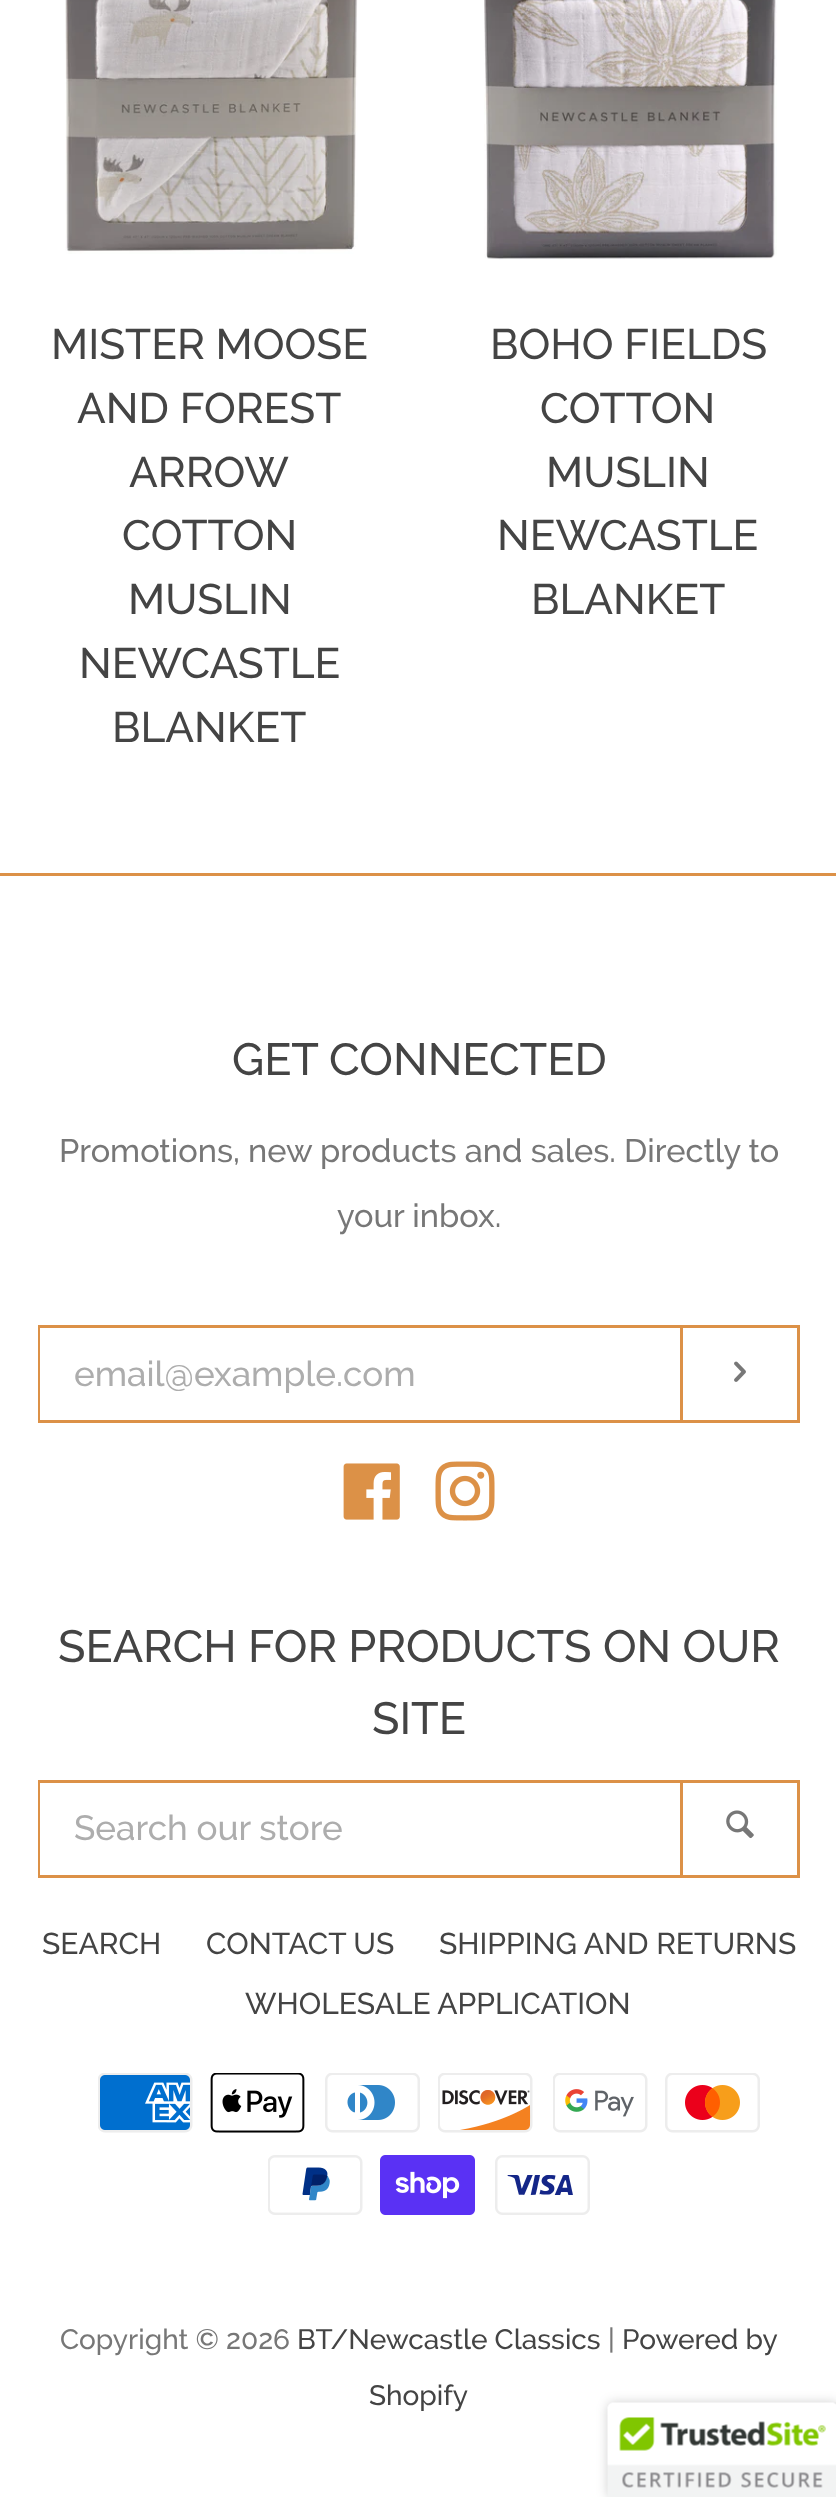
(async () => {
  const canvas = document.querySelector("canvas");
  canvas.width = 836;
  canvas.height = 2497;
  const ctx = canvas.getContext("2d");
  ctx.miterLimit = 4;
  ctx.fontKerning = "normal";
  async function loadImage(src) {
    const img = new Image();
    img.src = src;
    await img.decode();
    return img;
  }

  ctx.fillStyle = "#ffffff";
  ctx.fillRect(0, 0, 836, 2497);
  ctx.drawImage(await loadImage("img/1.png"), 65, 0, 293, 254);
  ctx.drawImage(await loadImage("img/2.png"), 484, 0, 293, 260);
  ctx.fillStyle = "#dc9147";
  ctx.fillRect(0, 873, 836, 3);
  ctx.strokeStyle = "#dc9147";
  ctx.lineWidth = 3;
  ctx.strokeRect(39.5, 1326.5, 759, 95);
  ctx.fillStyle = "#ffffff";
  ctx.fillRect(40, 1328, 1, 92);
  ctx.fillStyle = "#dc9147";
  ctx.fillRect(680, 1328, 3, 92);
  ctx.drawImage(await loadImage("img/3.png"), 734, 1361, 12, 21);
  ctx.drawImage(await loadImage("img/4.png"), 343, 1463, 57, 57);
  ctx.drawImage(await loadImage("img/5.png"), 435, 1461, 60, 60);
  ctx.strokeRect(39.5, 1781.5, 759, 95);
  ctx.fillStyle = "#ffffff";
  ctx.fillRect(40, 1783, 1, 92);
  ctx.fillStyle = "#dc9147";
  ctx.fillRect(680, 1783, 3, 92);
  ctx.drawImage(await loadImage("img/6.png"), 726, 1810, 28, 29);
  ctx.drawImage(await loadImage("img/7.png"), 98, 2073, 95, 60);
  ctx.drawImage(await loadImage("img/8.png"), 210, 2073, 95, 60);
  ctx.drawImage(await loadImage("img/9.png"), 325, 2073, 95, 60);
  ctx.drawImage(await loadImage("img/10.png"), 438, 2073, 95, 60);
  ctx.drawImage(await loadImage("img/11.png"), 553, 2073, 95, 60);
  ctx.drawImage(await loadImage("img/12.png"), 665, 2073, 95, 60);
  ctx.drawImage(await loadImage("img/13.png"), 268, 2155, 95, 60);
  ctx.drawImage(await loadImage("img/14.png"), 380, 2155, 95, 60);
  ctx.drawImage(await loadImage("img/15.png"), 495, 2155, 95, 60);
  ctx.fillStyle = "rgba(0, 0, 0, 0.2)";
  ctx.filter = "blur(6px)";
  ctx.beginPath();
  ctx.roundRect(608, 2403, 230, 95, 5);
  ctx.fill();
  ctx.filter = "none";
  ctx.drawImage(await loadImage("img/16.png"), 607, 2402, 229, 95);
  ctx.font = "500 42.5px Raleway";
  ctx.fillStyle = "#444444";
  for (const [text, x, y] of [
    ["MISTER MOOSE", 51, 359],
    ["AND FOREST", 77, 423],
    ["ARROW", 129, 487],
    ["COTTON", 122, 550],
    ["MUSLIN", 128, 614],
    ["NEWCASTLE", 79, 678],
    ["BLANKET", 112, 742],
    ["BOHO FIELDS", 490, 359],
    ["COTTON", 540, 423],
    ["MUSLIN", 546, 487],
    ["NEWCASTLE", 497, 550],
    ["BLANKET", 531, 614],
  ]) {
    ctx.fillText(text, x, y);
  }
  ctx.font = "500 45px Raleway";
  ctx.fillText("GET CONNECTED", 232, 1075);
  ctx.font = "500 32.5px Raleway";
  ctx.fillStyle = "#777777";
  ctx.fillText("Promotions, new products and sales. Directly to", 59, 1162);
  ctx.fillText("your inbox.", 337, 1227);
  ctx.save();
  ctx.beginPath();
  ctx.rect(75, 1353, 573, 40);
  ctx.clip();
  ctx.font = "500 35px Raleway";
  ctx.fillStyle = "#adadad";
  ctx.fillText("email@example.com", 74, 1386);
  ctx.restore();
  ctx.font = "500 45px Raleway";
  ctx.fillStyle = "#444444";
  ctx.fillText("SEARCH FOR PRODUCTS ON OUR", 58, 1662);
  ctx.fillText("SITE", 372, 1734);
  ctx.font = "500 35px Raleway";
  ctx.fillStyle = "#adadad";
  ctx.fillText("Search our store", 74, 1840);
  ctx.font = "500 30px Raleway";
  ctx.fillStyle = "#444444";
  for (const [text, x, y] of [
    ["SEARCH", 42, 1954],
    ["CONTACT US", 206, 1954],
    ["SHIPPING AND RETURNS", 439, 1954],
    ["WHOLESALE APPLICATION", 245, 2014],
  ]) {
    ctx.fillText(text, x, y);
  }
  ctx.font = "500 28px Raleway";
  ctx.fillStyle = "#777777";
  ctx.fillText("Copyright © 2026", 60, 2349);
  ctx.fillStyle = "#444444";
  ctx.fillText("BT/Newcastle Classics", 297, 2349);
  ctx.fillStyle = "#777777";
  ctx.fillText("|", 608, 2349);
  ctx.fillStyle = "#444444";
  ctx.fillText("Powered by", 622, 2349);
  ctx.fillText("Shopify", 369, 2405);
})();
